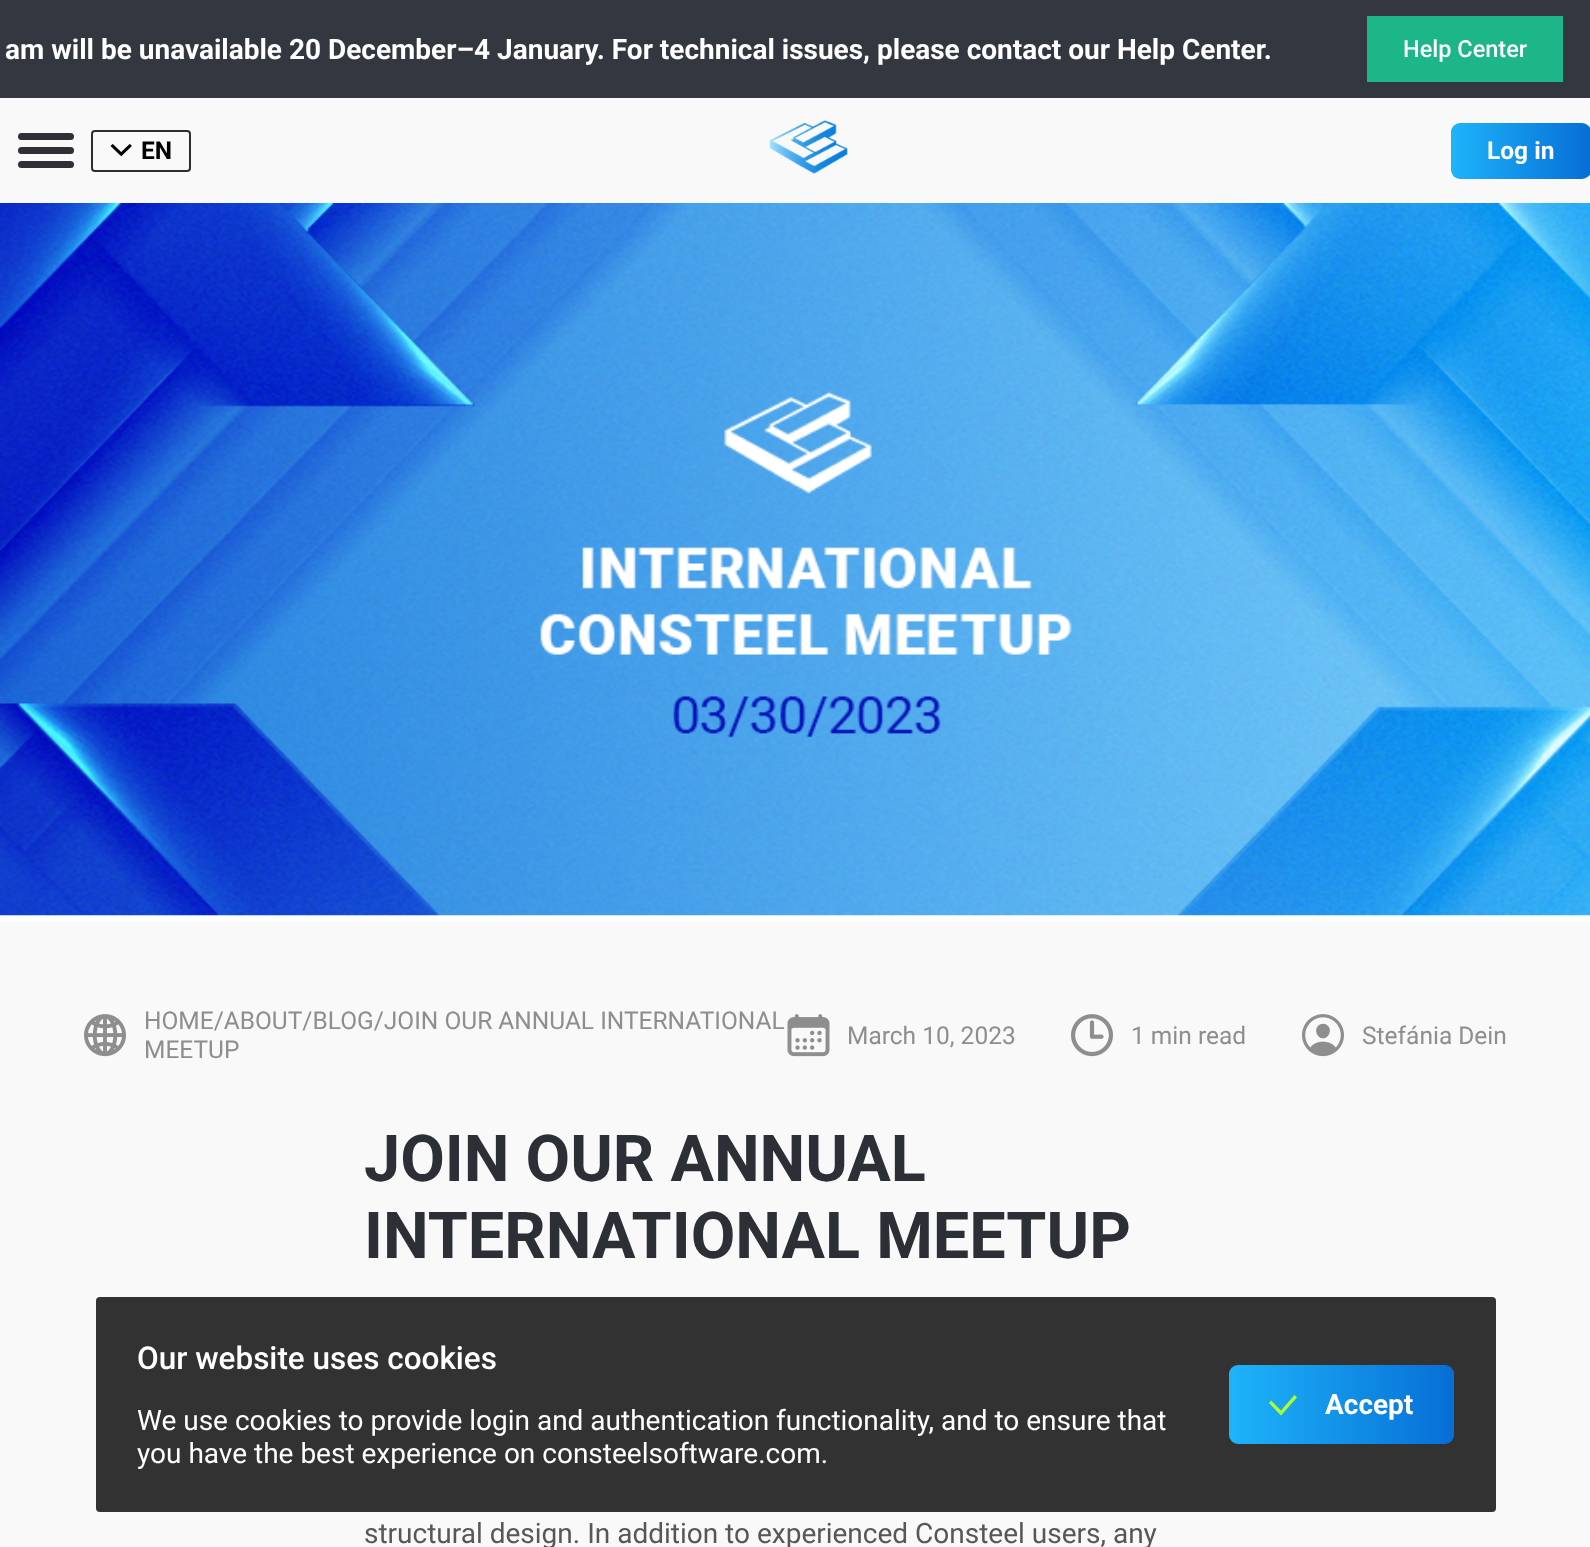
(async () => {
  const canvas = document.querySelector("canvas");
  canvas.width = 1590;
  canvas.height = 1547;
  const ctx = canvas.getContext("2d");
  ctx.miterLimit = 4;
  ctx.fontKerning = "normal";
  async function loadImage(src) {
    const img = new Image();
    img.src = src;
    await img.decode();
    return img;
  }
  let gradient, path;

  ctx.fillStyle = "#ffffff";
  ctx.fillRect(0, 0, 1590, 1547);
  for (const [x, y, w, h, color] of [
    [0, 98, 1590, 105, "#f9f9f9"],
    [0, 0, 1590, 98, "#333840"],
    [1367, 16, 196, 66, "#1cb689"],
  ]) {
    ctx.fillStyle = color;
    ctx.fillRect(x, y, w, h);
  }
  ctx.fillStyle = "#2f2f35";
  ctx.beginPath();
  ctx.roundRect(18, 133, 56, 7, 3.5);
  ctx.fill();
  ctx.beginPath();
  ctx.roundRect(18, 147, 56, 7, 3.5);
  ctx.fill();
  ctx.beginPath();
  ctx.roundRect(18, 161, 56, 7, 3.5);
  ctx.fill();
  ctx.beginPath();
  ctx.roundRect(92, 131, 98, 40, 3);
  ctx.strokeStyle = "#2d2d2d";
  ctx.lineWidth = 2;
  ctx.stroke();
  ctx.drawImage(await loadImage("img/1.png"), 110, 144, 22, 13);
  ctx.drawImage(await loadImage("img/2.png"), 769, 120, 79, 54);
  gradient = ctx.createLinearGradient(1451, 151, 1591, 151);
  gradient.addColorStop(0, "#1eb4fa");
  gradient.addColorStop(1, "#066ed6");
  ctx.fillStyle = gradient;
  ctx.beginPath();
  ctx.roundRect(1451, 123, 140, 56, 9);
  ctx.fill();
  ctx.drawImage(await loadImage("img/3.png"), 0, 203, 1590, 713);
  ctx.fillStyle = "#f9f9f9";
  ctx.fillRect(0, 922, 1590, 625);
  ctx.drawImage(await loadImage("img/4.png"), 84, 1014, 42, 43);
  ctx.drawImage(await loadImage("img/5.png"), 787, 1014, 43, 43);
  ctx.drawImage(await loadImage("img/6.png"), 1071, 1014, 42, 43);
  ctx.drawImage(await loadImage("img/7.png"), 1302, 1014, 42, 43);
  ctx.fillStyle = "rgba(0, 0, 0, 0.8)";
  ctx.beginPath();
  ctx.roundRect(96, 1297, 1400, 215, 4);
  ctx.fill();
  gradient = ctx.createLinearGradient(1229, 1404, 1454, 1404);
  gradient.addColorStop(0, "#1eb4fa");
  gradient.addColorStop(1, "#066ed6");
  ctx.fillStyle = gradient;
  ctx.beginPath();
  ctx.roundRect(1229, 1365, 225, 79, 9);
  ctx.fill();
  ctx.fillStyle = "#adff2f";
  path = new Path2D("M1271 1400.5L1269 1403L1281 1415.5L1297 1397.5L1294.5 1395L1281 1410.5Z");
  ctx.fill(path);
  ctx.font = "bold 28px Roboto";
  ctx.fillStyle = "#ffffff";
  ctx.fillText("am will be unavailable 20 December–4 January. For technical issues, please contact our Help Center.", 5, 59);
  ctx.font = "500 23.5px Roboto";
  ctx.fillText("Help Center", 1403, 57);
  ctx.font = "bold 24.5px Roboto";
  ctx.fillStyle = "#000000";
  ctx.fillText("EN", 141, 159);
  ctx.fillStyle = "#ffffff";
  ctx.fillText("Log in", 1487, 159);
  ctx.font = "24.5px Roboto";
  ctx.fillStyle = "#8e8e8e";
  for (const [text, x, y] of [
    ["HOME/ABOUT/BLOG/JOIN OUR ANNUAL INTERNATIONAL", 144, 1029],
    ["MEETUP", 144, 1058],
    ["March 10, 2023", 847, 1044],
    ["1 min read", 1131, 1044],
    ["Stefánia Dein", 1362, 1044],
  ]) {
    ctx.fillText(text, x, y);
  }
  ctx.font = "bold 64.75px Roboto";
  ctx.fillStyle = "#2c2f35";
  ctx.fillText("JOIN OUR ANNUAL", 364, 1181);
  ctx.fillText("INTERNATIONAL MEETUP", 364, 1258);
  ctx.font = "28px Roboto";
  ctx.fillStyle = "#575756";
  ctx.fillText("structural design. In addition to experienced Consteel users, any", 364, 1543);
  ctx.font = "500 31.5px Roboto";
  ctx.fillStyle = "#ffffff";
  ctx.fillText("Our website uses cookies", 137, 1369);
  ctx.font = "28px Roboto";
  ctx.fillText("We use cookies to provide login and authentication functionality, and to ensure that", 137, 1430);
  ctx.fillText("you have the best experience on consteelsoftware.com.", 137, 1463);
  ctx.font = "bold 28px Roboto";
  ctx.fillText("Accept", 1325, 1414);
})();
